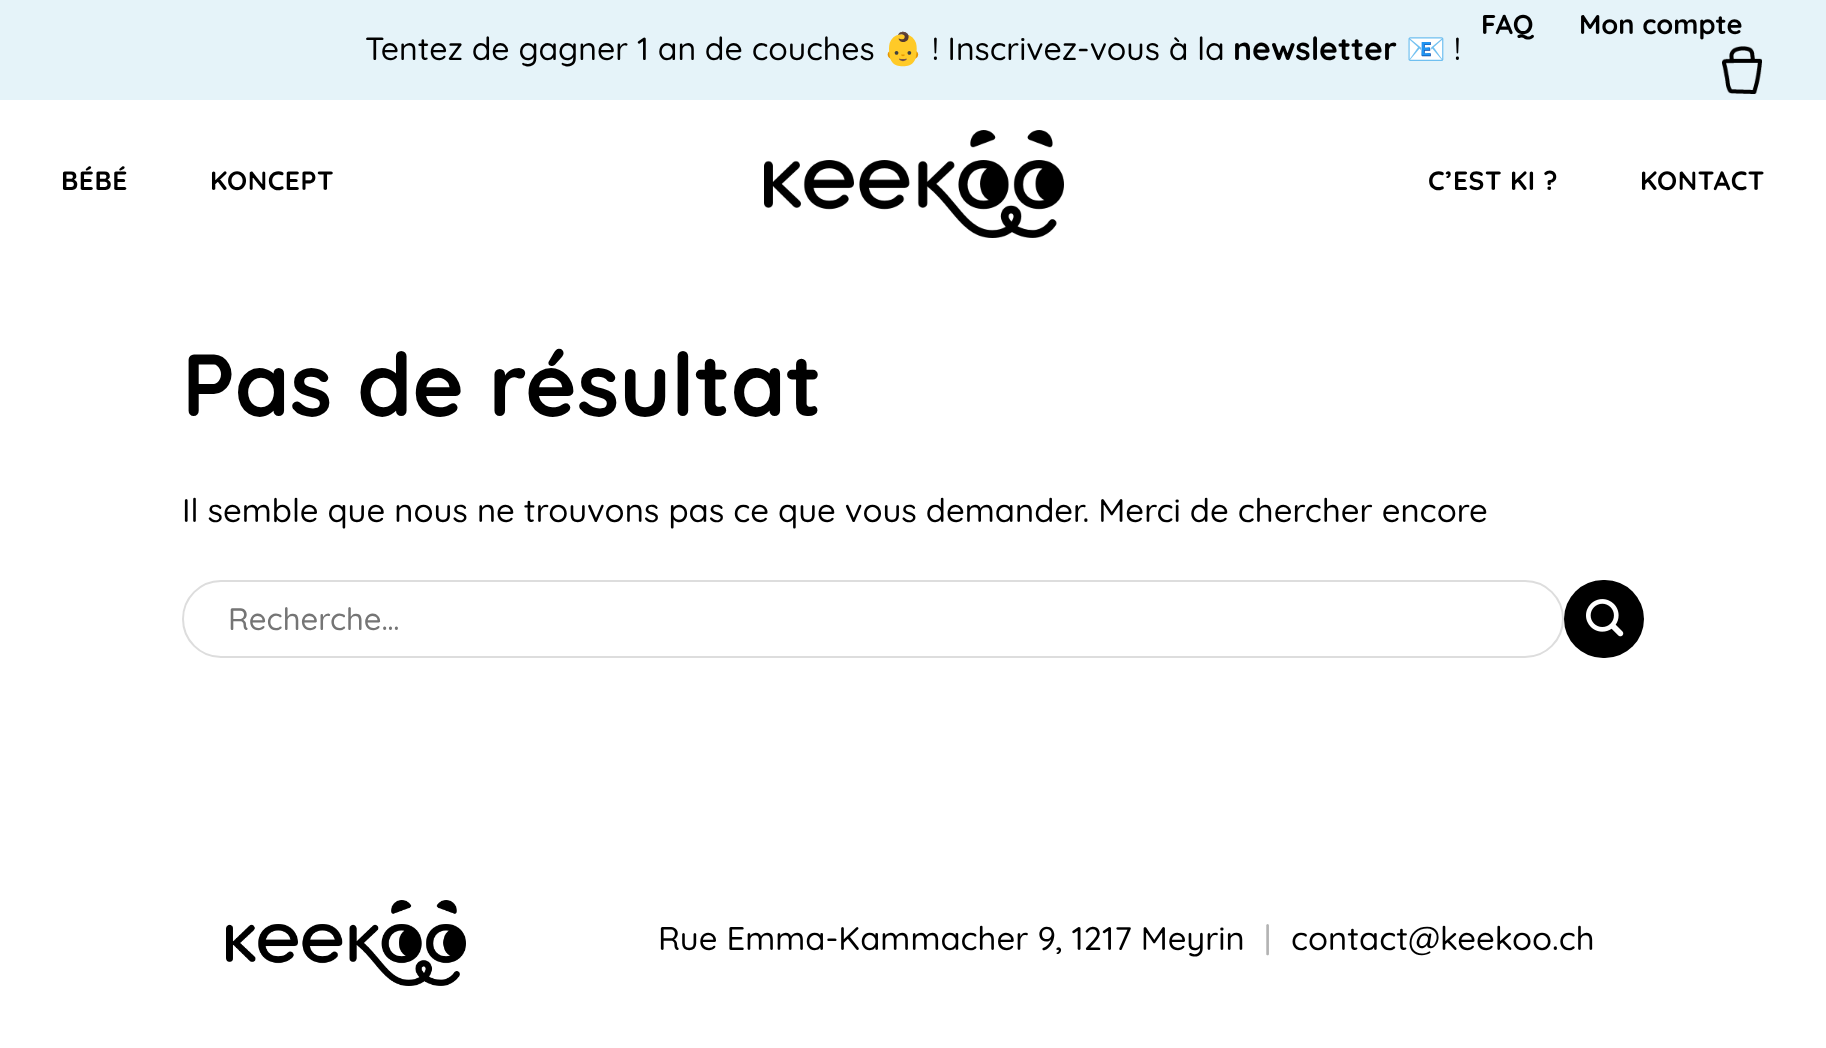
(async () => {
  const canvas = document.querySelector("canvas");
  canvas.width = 1826;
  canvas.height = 1048;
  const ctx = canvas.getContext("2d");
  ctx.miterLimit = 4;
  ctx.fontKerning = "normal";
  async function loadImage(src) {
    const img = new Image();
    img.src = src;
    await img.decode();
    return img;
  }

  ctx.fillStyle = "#ffffff";
  ctx.fillRect(0, 0, 1826, 1048);
  ctx.fillStyle = "#e5f3f9";
  ctx.fillRect(0, 0, 1826, 100);
  ctx.drawImage(await loadImage("img/1.png"), 1722, 46, 40, 48);
  ctx.drawImage(await loadImage("img/2.png"), 764, 130, 300, 108);
  ctx.beginPath();
  ctx.roundRect(183, 581, 1380, 76, 38);
  ctx.strokeStyle = "#dddddd";
  ctx.lineWidth = 2;
  ctx.stroke();
  ctx.fillStyle = "#000000";
  ctx.beginPath();
  ctx.roundRect(1564, 580, 80, 78, 39);
  ctx.fill();
  ctx.drawImage(await loadImage("img/3.png"), 1586, 599, 38, 38);
  ctx.drawImage(await loadImage("img/4.png"), 226, 900, 240, 86);
  ctx.font = "bold 27.25px Quicksand";
  ctx.fillText("FAQ", 1481, 34);
  ctx.fillText("Mon compte", 1579, 34);
  ctx.font = "500 32px Quicksand";
  ctx.fillText("Tentez de gagner 1 an de couches", 365, 60);
  ctx.font = "32px Noto Color Emoji";
  ctx.fillText("👶", 883, 60);
  ctx.font = "500 32px Quicksand";
  ctx.fillText("! Inscrivez-vous à la", 932, 60);
  ctx.font = "bold 32px Quicksand";
  ctx.fillText("newsletter", 1233, 60);
  ctx.font = "32px Noto Color Emoji";
  ctx.fillText("📧", 1406, 60);
  ctx.font = "500 32px Quicksand";
  ctx.fillText("!", 1454, 60);
  ctx.letterSpacing = "0.5px";
  ctx.font = "bold 26.5px Quicksand";
  for (const [text, x, y] of [
    ["BÉBÉ", 61, 190],
    ["KONCEPT", 210, 190],
    ["C’EST KI ?", 1428, 190],
    ["KONTACT", 1640, 190],
  ]) {
    ctx.fillText(text, x, y);
  }
  ctx.letterSpacing = "0px";
  ctx.font = "bold 88px Quicksand";
  ctx.fillText("Pas de résultat", 182, 416);
  ctx.font = "500 32.8px Quicksand";
  ctx.fillText("Il semble que nous ne trouvons pas ce que vous demander. Merci de chercher encore", 182, 522);
  ctx.font = "500 31px Quicksand";
  ctx.fillStyle = "#757575";
  ctx.fillText("Recherche…", 228, 630);
  ctx.font = "500 32.8px Quicksand";
  ctx.fillStyle = "#000000";
  ctx.fillText("Rue Emma-Kammacher 9, 1217 Meyrin", 658, 950);
  ctx.fillStyle = "#b3b3b3";
  ctx.fillText("|", 1264, 950);
  ctx.fillStyle = "#000000";
  ctx.fillText("contact@keekoo.ch", 1291, 950);
})();
